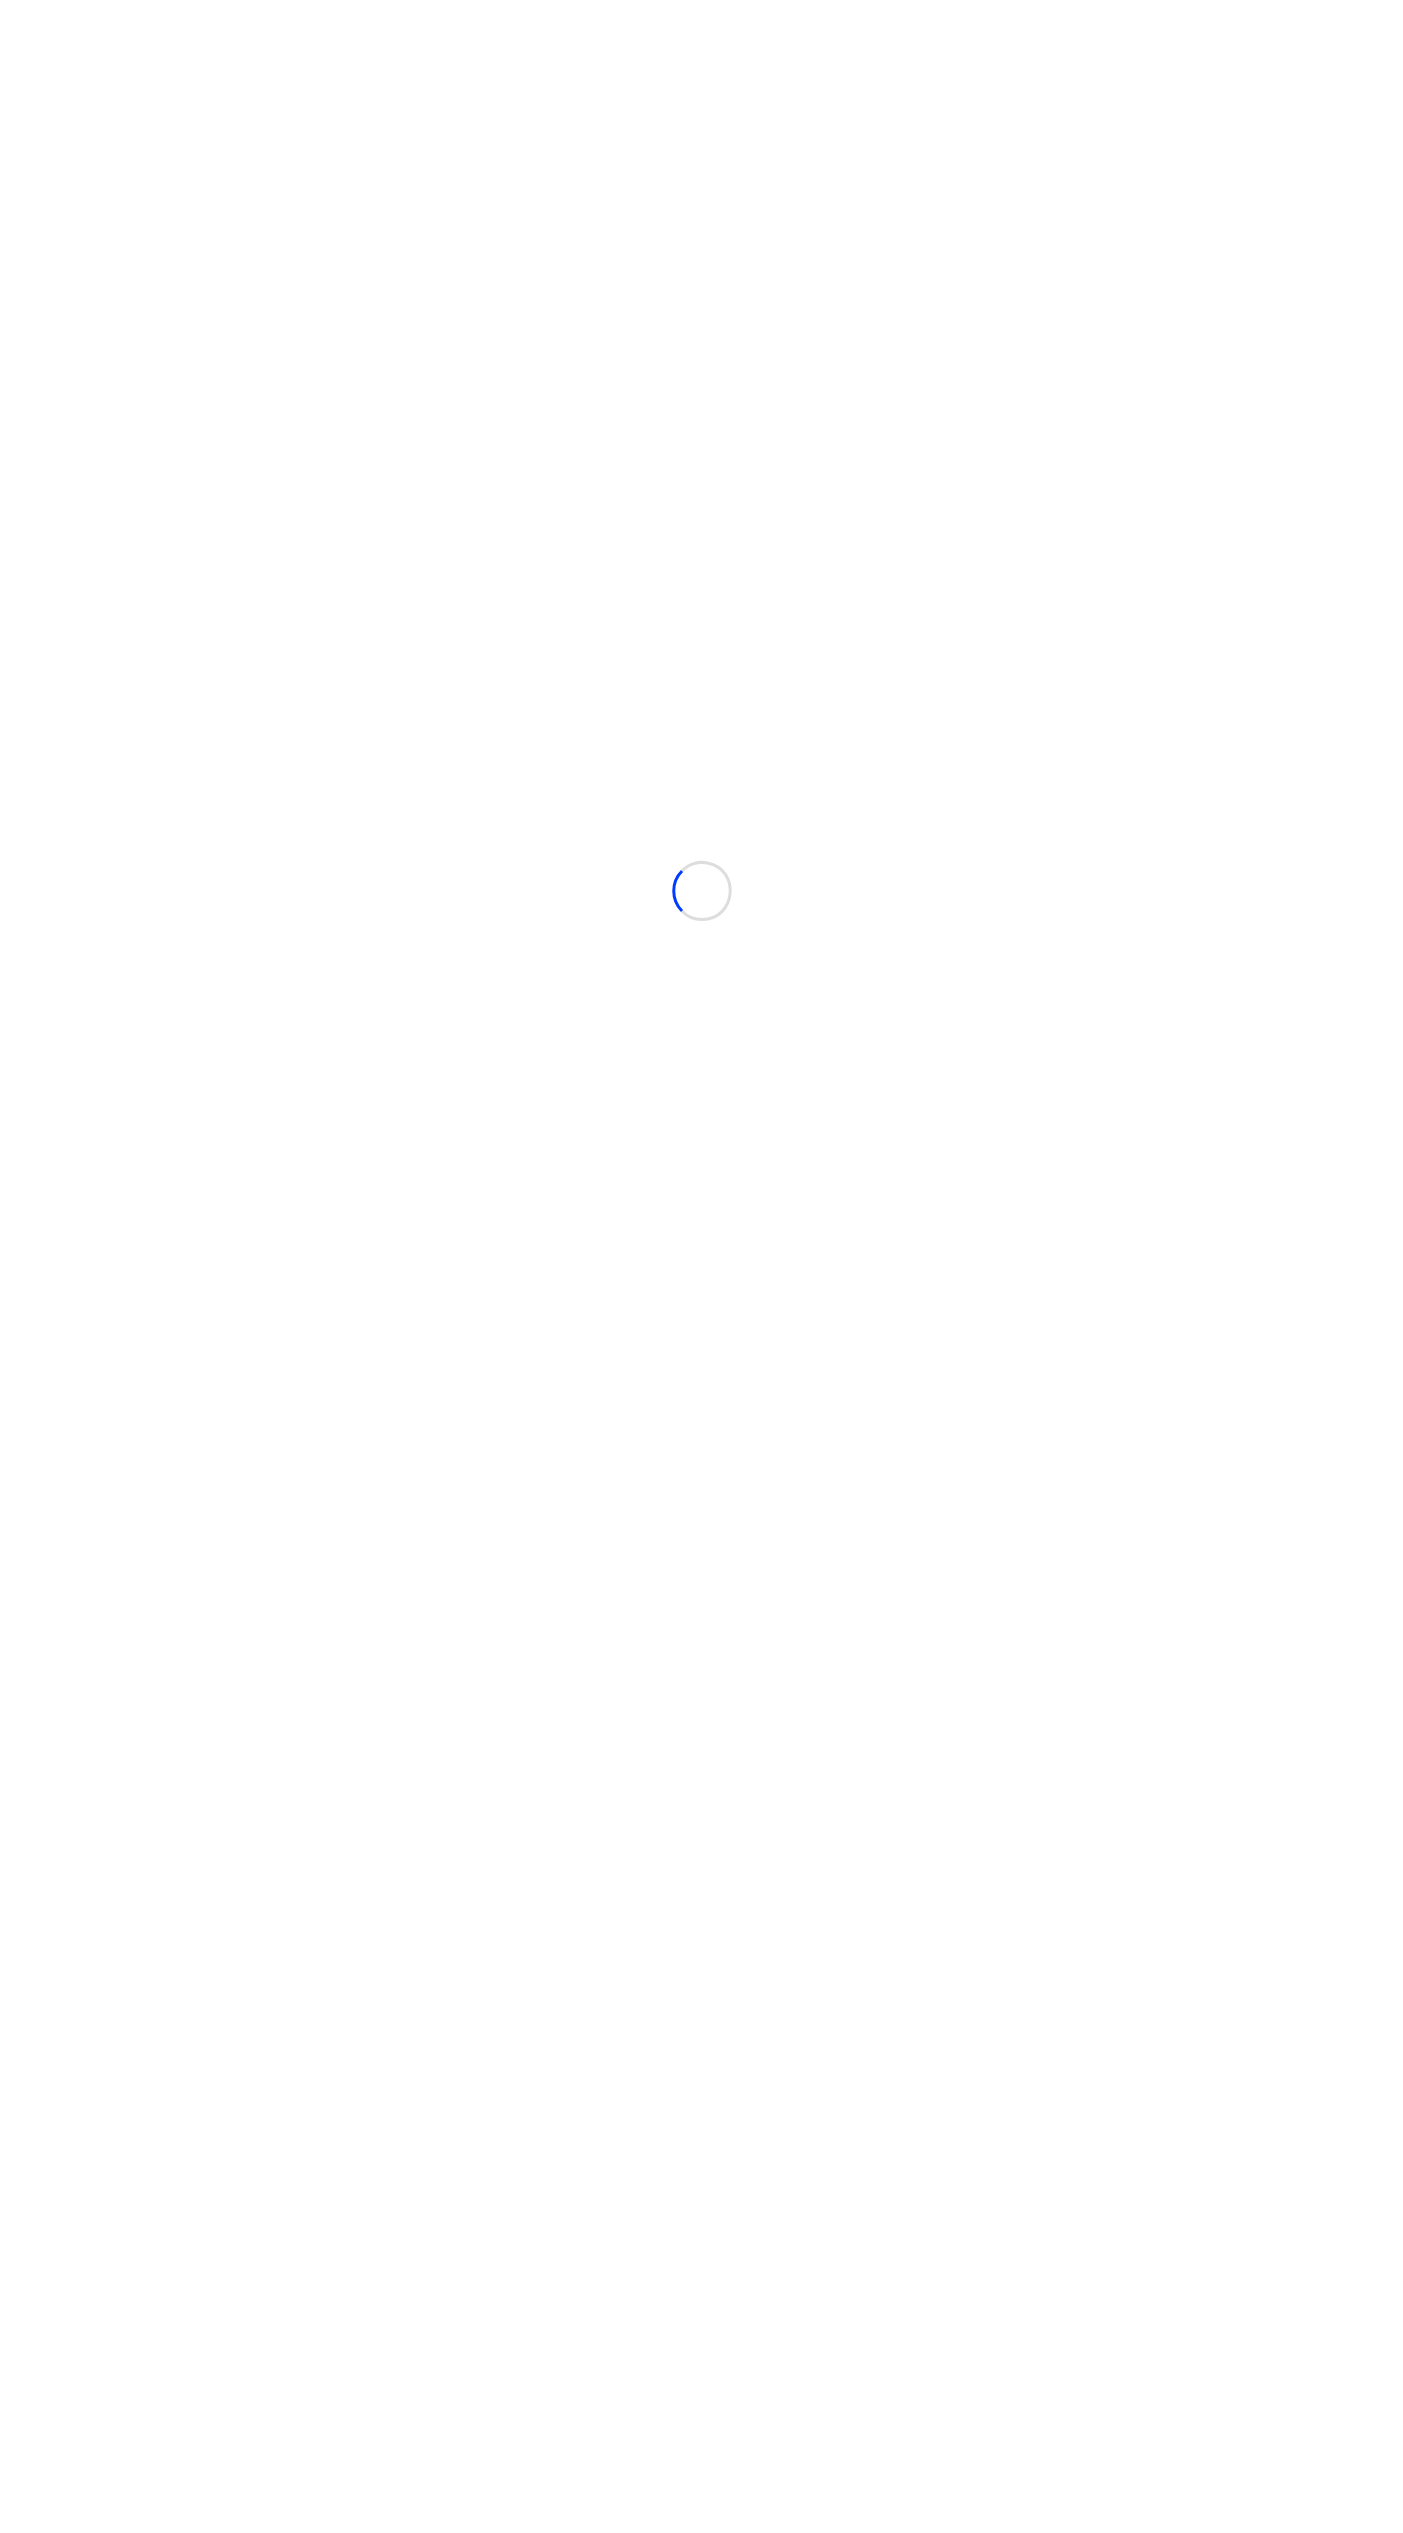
(async () => {
  const canvas = document.querySelector("canvas");
  canvas.width = 1403;
  canvas.height = 2533;
  const ctx = canvas.getContext("2d");
  ctx.miterLimit = 4;
  ctx.fontKerning = "normal";
  let path;

  ctx.fillStyle = "#ffffff";
  ctx.fillRect(0, 0, 1403, 2533);
  path = new Path2D("M682 871C688.5 864 698.5 861 707.5 863C741 869.5 736 919.5 702 919.5C694.5 919.5 687 916.5 682 911");
  ctx.strokeStyle = "#dddddd";
  ctx.lineWidth = 3;
  ctx.stroke(path);
  path = new Path2D("M682 911C671 900 671 882 682 871");
  ctx.strokeStyle = "#003cff";
  ctx.stroke(path);
})();
